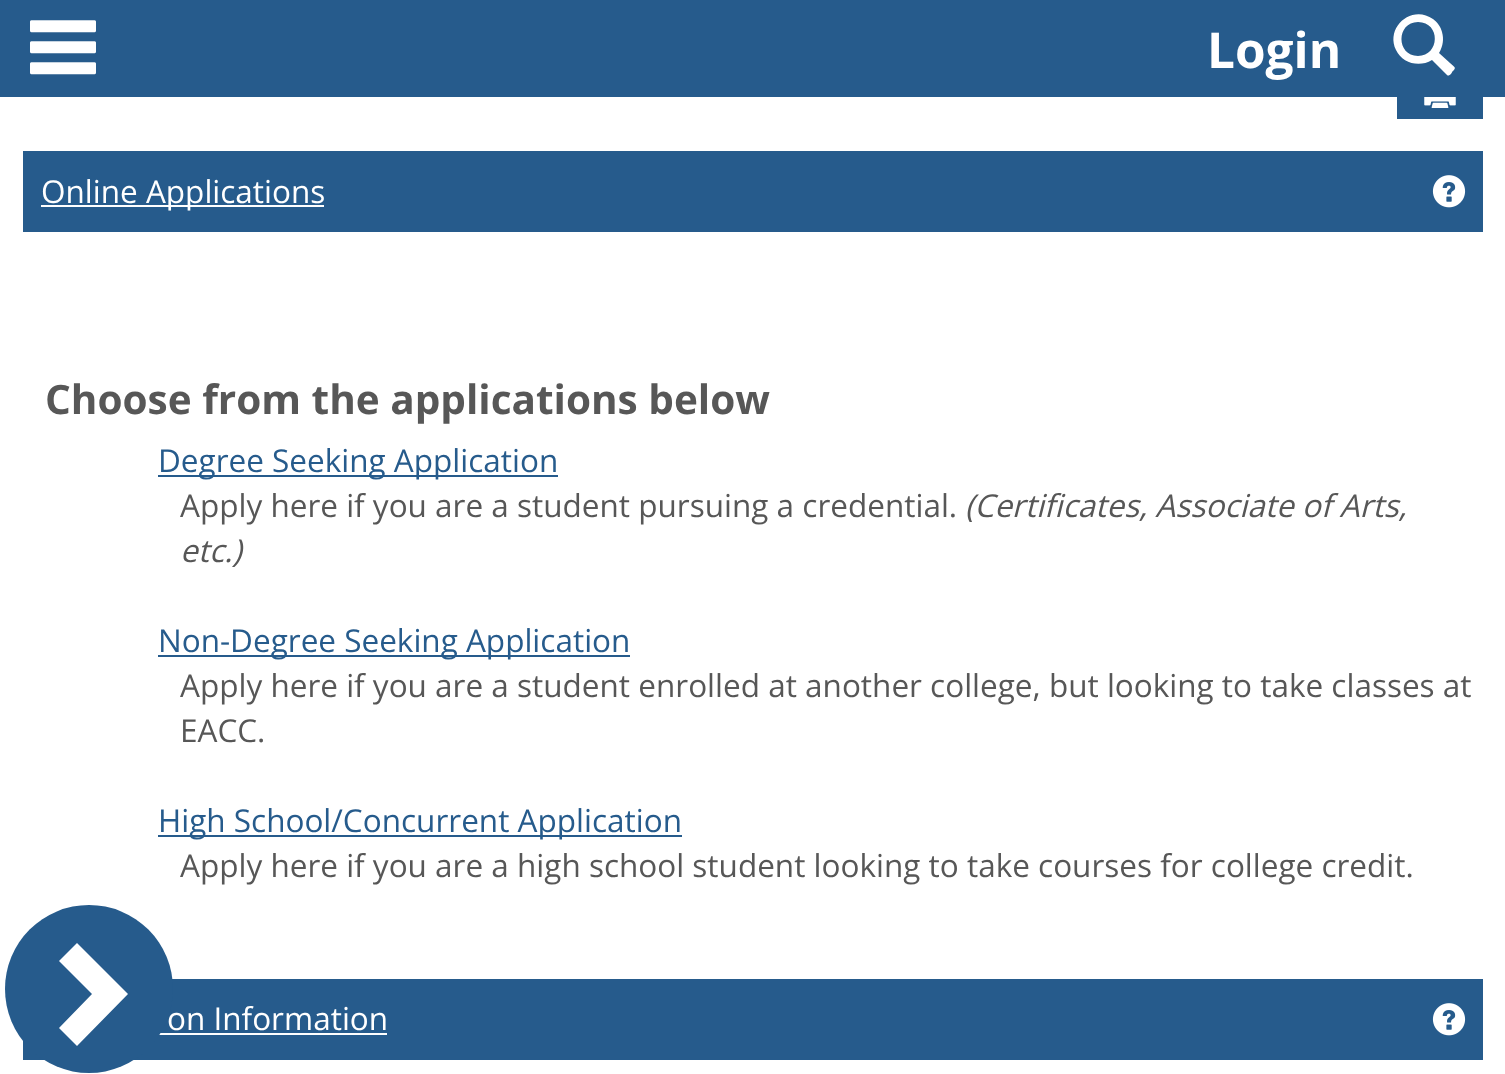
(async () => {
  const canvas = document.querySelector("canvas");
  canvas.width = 1505;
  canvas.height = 1074;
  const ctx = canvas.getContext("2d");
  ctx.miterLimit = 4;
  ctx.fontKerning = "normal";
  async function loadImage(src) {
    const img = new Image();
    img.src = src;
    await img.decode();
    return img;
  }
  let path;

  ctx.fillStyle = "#ffffff";
  ctx.fillRect(0, 0, 1505, 1074);
  ctx.fillStyle = "#265b8c";
  ctx.fillRect(0, 0, 1505, 97);
  ctx.drawImage(await loadImage("img/1.png"), 30, 20, 66, 55);
  ctx.fillStyle = "#ffffff";
  path = new Path2D("M1447 75L1432 60C1419 68 1402 63 1396 50C1385 27 1412 4 1433 19C1437 22 1441 27 1442 32C1444 39 1443 46 1439 53L1450 63C1455 68 1457 67 1452 72C1452 73 1449 77 1447 75ZM1418 56C1440 56 1441 22 1418 22C1396 22 1396 56 1418 56Z");
  ctx.fill(path);
  ctx.fillStyle = "#265b8c";
  ctx.fillRect(1397, 97, 86, 22);
  ctx.drawImage(await loadImage("img/2.png"), 1424, 97, 32, 11);
  ctx.fillRect(23, 151, 1460, 81);
  ctx.fillStyle = "#ffffff";
  ctx.fillRect(41, 205, 283, 2);
  ctx.drawImage(await loadImage("img/3.png"), 1432, 175, 34, 33);
  for (const [x, y, w, h, color] of [
    [158, 475, 400, 2, "#265b8c"],
    [158, 655, 472, 2, "#265b8c"],
    [158, 835, 524, 2, "#265b8c"],
    [23, 979, 1460, 81, "#265b8c"],
    [159, 1033, 228, 2, "#ffffff"],
  ]) {
    ctx.fillStyle = color;
    ctx.fillRect(x, y, w, h);
  }
  ctx.drawImage(await loadImage("img/3.png"), 1432, 1003, 34, 33);
  ctx.font = "bold 49.5px Open Sans";
  ctx.fillText("Login", 1207, 68);
  ctx.font = "31.5px Open Sans";
  ctx.fillText("Online Applications", 41, 203);
  ctx.font = "bold 40.5px Open Sans";
  ctx.fillStyle = "#575757";
  ctx.fillText("Choose from the applications below", 45, 414);
  ctx.font = "31.5px Open Sans";
  ctx.fillStyle = "#265b8c";
  ctx.fillText("Degree Seeking Application", 158, 472);
  ctx.fillStyle = "#575757";
  ctx.fillText("Apply here if you are a student pursuing a credential.", 180, 517);
  ctx.font = "italic 31.5px Open Sans";
  ctx.fillText("(Certificates, Associate of Arts,", 965, 517);
  ctx.fillText("etc.)", 180, 562);
  ctx.font = "31.5px Open Sans";
  ctx.fillStyle = "#265b8c";
  ctx.fillText("Non-Degree Seeking Application", 158, 652);
  ctx.fillStyle = "#575757";
  ctx.fillText("Apply here if you are a student enrolled at another college, but looking to take classes at", 180, 697);
  ctx.fillText("EACC.", 180, 742);
  ctx.fillStyle = "#265b8c";
  ctx.fillText("High School/Concurrent Application", 158, 832);
  ctx.fillStyle = "#575757";
  ctx.fillText("Apply here if you are a high school student looking to take courses for college credit.", 180, 877);
  ctx.fillStyle = "#ffffff";
  ctx.fillText("on Information", 167, 1030);
  ctx.fillStyle = "#265b8c";
  ctx.beginPath();
  ctx.arc(89, 989, 84, 0, Math.PI * 2);
  ctx.fill();
  ctx.fillStyle = "#ffffff";
  path = new Path2D("M77 1046L59 1028L92 994L59 961L77 943L128 994Z");
  ctx.fill(path);
})();
